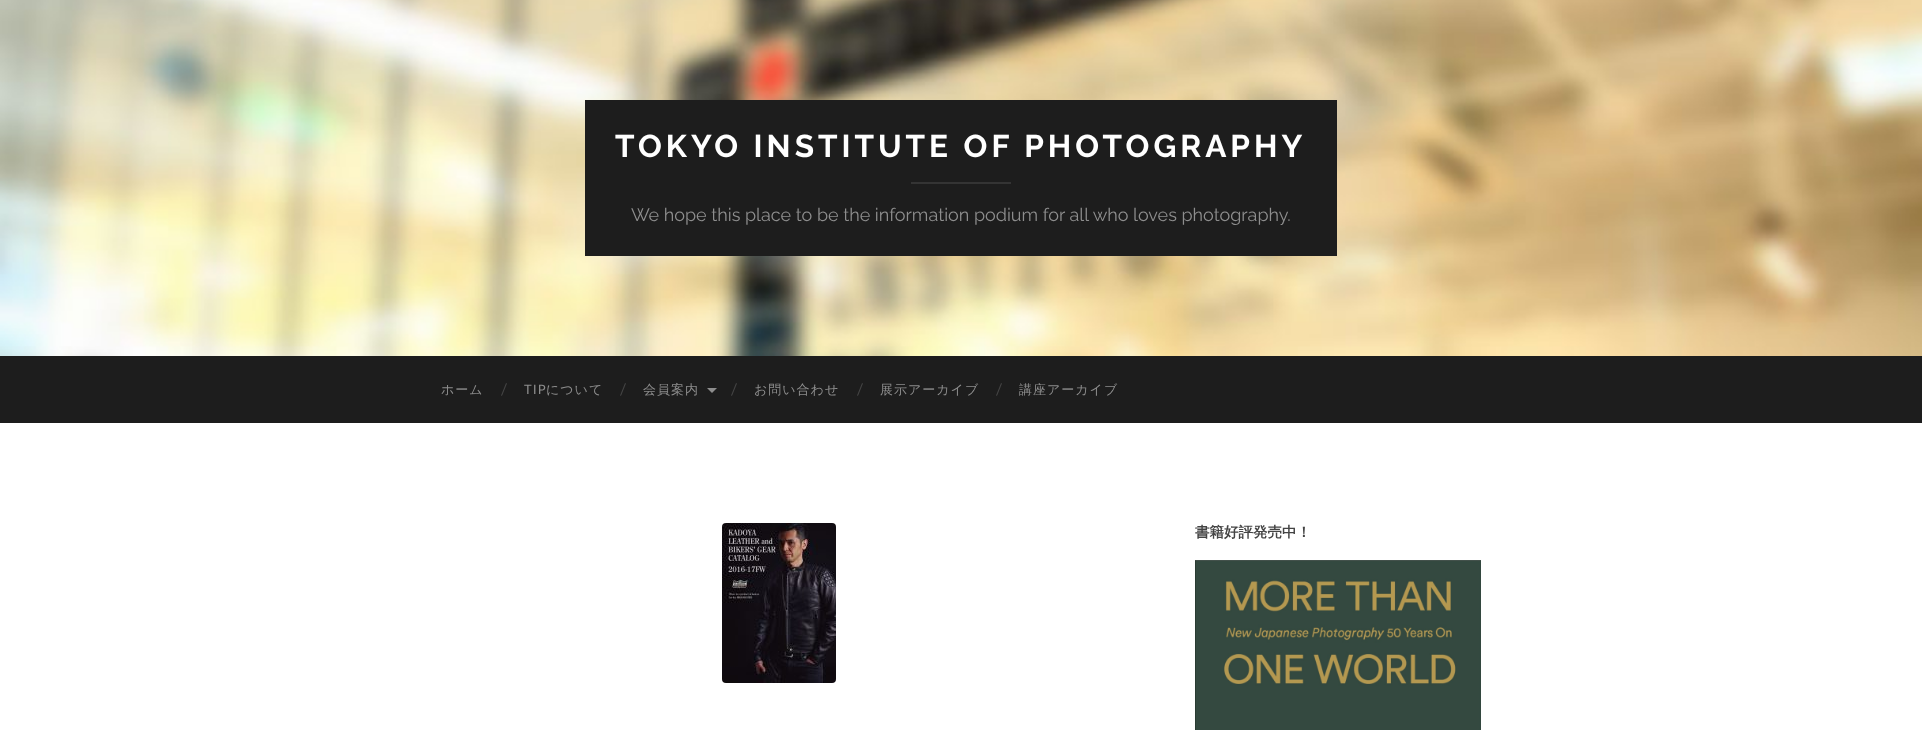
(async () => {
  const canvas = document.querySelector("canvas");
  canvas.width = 1922;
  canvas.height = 730;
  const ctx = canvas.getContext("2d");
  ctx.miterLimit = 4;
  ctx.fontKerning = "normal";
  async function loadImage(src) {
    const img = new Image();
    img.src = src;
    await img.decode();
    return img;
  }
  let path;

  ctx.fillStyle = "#ffffff";
  ctx.fillRect(0, 0, 1922, 730);
  ctx.drawImage(await loadImage("img/1.png"), 0, 0, 1922, 356);
  for (const [x, y, w, h, color] of [
    [585, 100, 752, 156, "#1d1d1d"],
    [911, 182, 100, 2, "#343434"],
    [0, 356, 1922, 67, "#1d1d1d"],
  ]) {
    ctx.fillStyle = color;
    ctx.fillRect(x, y, w, h);
  }
  ctx.fillStyle = "#8e8e8e";
  path = new Path2D("M707 388H717L712 393Z");
  ctx.fill(path);
  ctx.drawImage(await loadImage("img/2.png"), 722, 523, 114, 160);
  ctx.drawImage(await loadImage("img/3.png"), 1195, 560, 286, 170);
  ctx.letterSpacing = "4px";
  ctx.font = "100 31.5px Raleway";
  ctx.fillStyle = "#ffffff";
  ctx.fillText("TOKYO INSTITUTE OF PHOTOGRAPHY", 615, 157);
  ctx.letterSpacing = "0px";
  ctx.font = "100 18px 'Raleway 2'";
  ctx.fillStyle = "#8e8e8e";
  ctx.fillText("We hope this place to be the information podium for all who loves photography.", 631, 221);
  ctx.letterSpacing = "1px";
  ctx.font = "500 13px WenQuanYi Zen Hei";
  ctx.fillText("ホーム", 441, 394);
  ctx.letterSpacing = "0px";
  ctx.font = "16px Lato";
  ctx.fillStyle = "#444444";
  ctx.fillText("/", 501, 395);
  ctx.letterSpacing = "1px";
  ctx.font = "13px Lato";
  ctx.fillStyle = "#8e8e8e";
  ctx.fillText("TIP", 524, 394);
  ctx.font = "500 13px WenQuanYi Zen Hei";
  ctx.fillText("について", 546, 394);
  ctx.letterSpacing = "0px";
  ctx.font = "16px Lato";
  ctx.fillStyle = "#444444";
  ctx.fillText("/", 620, 395);
  ctx.letterSpacing = "1px";
  ctx.font = "500 13px WenQuanYi Zen Hei";
  ctx.fillStyle = "#8e8e8e";
  ctx.fillText("会員案内", 643, 394);
  ctx.letterSpacing = "0px";
  ctx.font = "16px Lato";
  ctx.fillStyle = "#444444";
  ctx.fillText("/", 731, 395);
  ctx.letterSpacing = "1px";
  ctx.font = "500 13px WenQuanYi Zen Hei";
  ctx.fillStyle = "#8e8e8e";
  ctx.fillText("お問い合わせ", 754, 394);
  ctx.letterSpacing = "0px";
  ctx.font = "16px Lato";
  ctx.fillStyle = "#444444";
  ctx.fillText("/", 857, 395);
  ctx.letterSpacing = "1px";
  ctx.font = "500 13px WenQuanYi Zen Hei";
  ctx.fillStyle = "#8e8e8e";
  ctx.fillText("展示アーカイブ", 880, 394);
  ctx.letterSpacing = "0px";
  ctx.font = "16px Lato";
  ctx.fillStyle = "#444444";
  ctx.fillText("/", 996, 395);
  ctx.letterSpacing = "1px";
  ctx.font = "500 13px WenQuanYi Zen Hei";
  ctx.fillStyle = "#8e8e8e";
  ctx.fillText("講座アーカイブ", 1019, 394);
  ctx.letterSpacing = "0px";
  ctx.font = "bold 14.5px WenQuanYi Zen Hei";
  ctx.fillStyle = "#444444";
  ctx.fillText("書籍好評発売中！", 1195, 537);
})();
